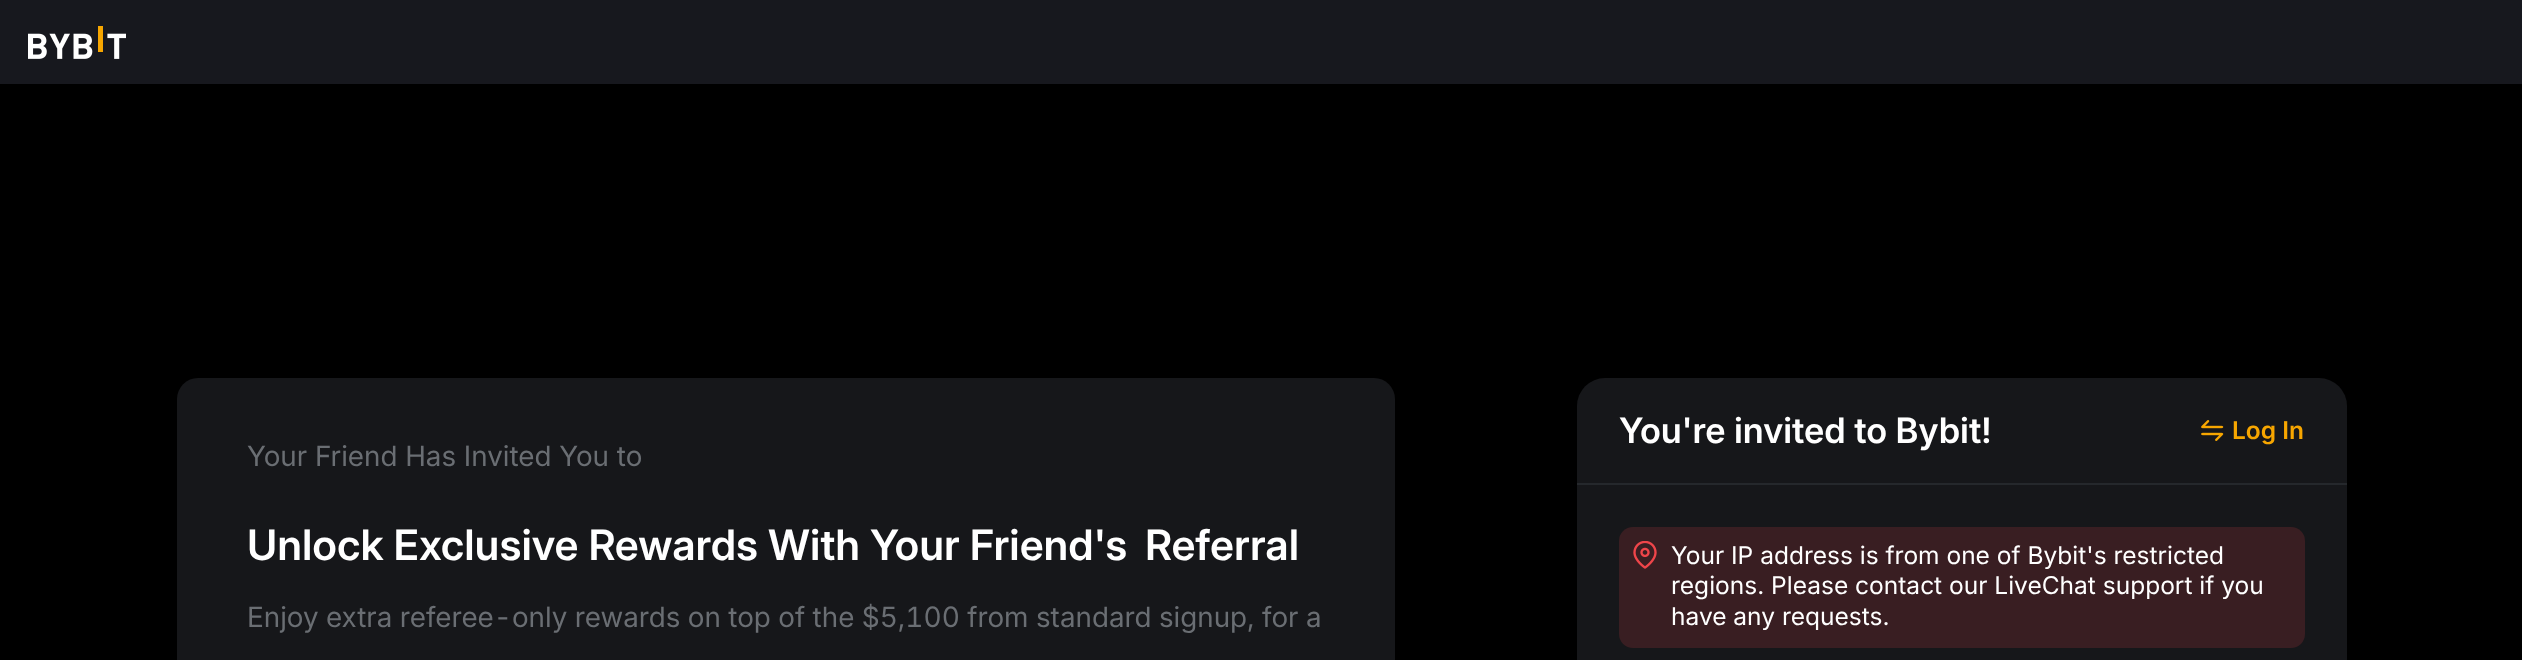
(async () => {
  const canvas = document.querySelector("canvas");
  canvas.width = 2522;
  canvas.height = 660;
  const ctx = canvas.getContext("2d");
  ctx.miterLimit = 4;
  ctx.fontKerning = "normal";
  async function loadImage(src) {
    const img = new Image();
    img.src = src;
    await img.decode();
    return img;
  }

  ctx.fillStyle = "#000000";
  ctx.fillRect(0, 0, 2522, 660);
  ctx.fillStyle = "#17181e";
  ctx.fillRect(0, 0, 2522, 84);
  ctx.drawImage(await loadImage("img/1.png"), 28, 26, 98, 33);
  ctx.fillStyle = "#16171a";
  ctx.beginPath();
  ctx.roundRect(177, 378, 1218, 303, 21);
  ctx.fill();
  ctx.beginPath();
  ctx.roundRect(1577, 378, 770, 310, 28);
  ctx.fill();
  ctx.fillStyle = "#25282c";
  ctx.fillRect(1577, 483, 770, 2);
  ctx.drawImage(await loadImage("img/2.png"), 2201, 420, 23, 21);
  ctx.fillStyle = "#391e22";
  ctx.beginPath();
  ctx.roundRect(1619, 527, 686, 121, 14);
  ctx.fill();
  ctx.drawImage(await loadImage("img/3.png"), 1633, 541, 24, 28);
  ctx.font = "28px Inter";
  ctx.fillStyle = "#6a6e73";
  ctx.fillText("Your Friend Has Invited You to", 247, 466);
  ctx.font = "600 42px 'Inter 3'";
  ctx.fillStyle = "#ffffff";
  ctx.fillText("Unlock Exclusive Rewards With Your Friend's", 247, 560);
  ctx.fillText("Referral", 1145, 560);
  ctx.font = "28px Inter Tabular";
  ctx.fillStyle = "#6a6e73";
  ctx.fillText("Enjoy extra referee-only rewards on top of the $5,100 from standard signup, for a", 247, 627);
  ctx.font = "600 35px Inter";
  ctx.fillStyle = "#ffffff";
  ctx.fillText("You're invited to Bybit!", 1619, 443);
  ctx.font = "600 24.5px 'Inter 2'";
  ctx.fillStyle = "#f7a600";
  ctx.fillText("Log In", 2232, 439);
  ctx.font = "24.5px 'Inter 2'";
  ctx.fillStyle = "#ffffff";
  for (const [text, x, y] of [
    ["Your IP address is from one of Bybit's restricted", 1671, 564],
    ["regions. Please contact our LiveChat support if you", 1671, 594],
    ["have any requests.", 1671, 625],
  ]) {
    ctx.fillText(text, x, y);
  }
})();
